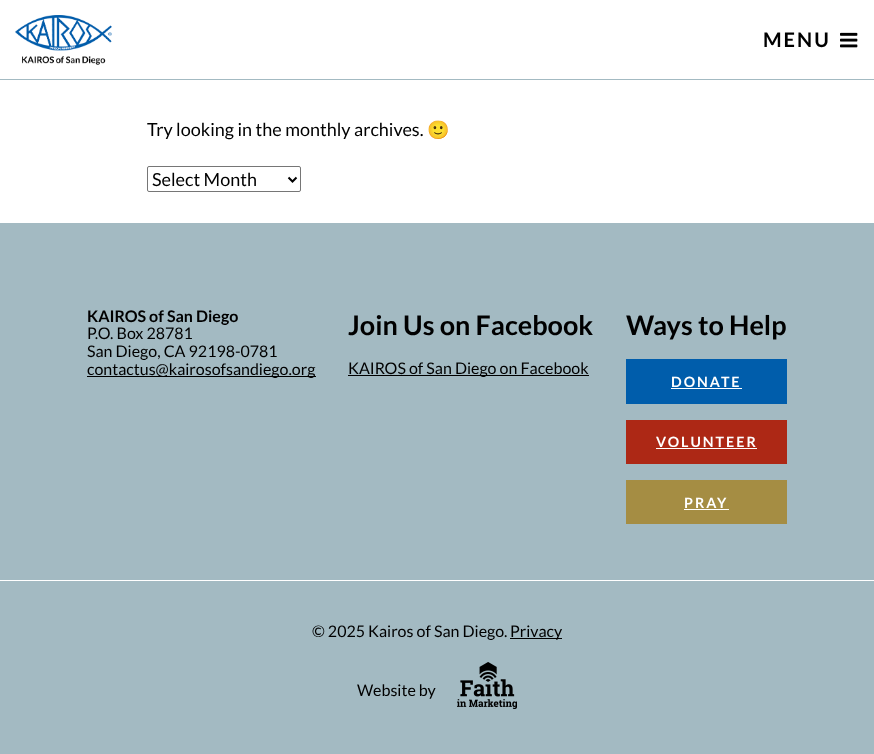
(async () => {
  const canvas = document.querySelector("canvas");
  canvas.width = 874;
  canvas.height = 754;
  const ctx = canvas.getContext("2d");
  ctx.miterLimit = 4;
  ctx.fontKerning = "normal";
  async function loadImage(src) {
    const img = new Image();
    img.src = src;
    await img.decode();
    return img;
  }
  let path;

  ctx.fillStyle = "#ffffff";
  ctx.fillRect(0, 0, 874, 754);
  ctx.drawImage(await loadImage("img/1.png"), 15, 15, 97, 50);
  ctx.fillStyle = "#a3bac2";
  ctx.fillRect(0, 79, 874, 1);
  ctx.drawImage(await loadImage("img/2.png"), 840, 32, 18, 16);
  ctx.beginPath();
  ctx.roundRect(147.5, 166.5, 153, 25, 1.5);
  ctx.strokeStyle = "#767676";
  ctx.stroke();
  path = new Path2D("M288.5 177.5L292.5 181.5L296.5 177.5");
  ctx.strokeStyle = "#000000";
  ctx.lineWidth = 2;
  ctx.stroke(path);
  for (const [x, y, w, h, color] of [
    [0, 223, 874, 531, "#a3bac2"],
    [87, 376, 229, 1, "#000000"],
    [348, 375, 241, 1, "#000000"],
    [626, 359, 161, 45, "#005dab"],
    [671, 388, 71, 1, "#ffffff"],
    [626, 420, 161, 44, "#ad2815"],
    [656, 448, 101, 1, "#ffffff"],
    [626, 480, 161, 44, "#a58d43"],
    [684, 509, 45, 1, "#ffffff"],
    [0, 580, 874, 1, "#ffffff"],
    [510, 638, 52, 1, "#000000"],
  ]) {
    ctx.fillStyle = color;
    ctx.fillRect(x, y, w, h);
  }
  ctx.drawImage(await loadImage("img/3.png"), 457, 662, 60, 47);
  ctx.letterSpacing = "2px";
  ctx.font = "bold 20px Lato";
  ctx.fillText("MENU", 763, 47);
  ctx.letterSpacing = "0px";
  ctx.font = "18px Lato";
  ctx.fillText("Try looking in the monthly archives.", 147, 136);
  ctx.font = "18px Noto Color Emoji";
  ctx.fillText("🙂", 427, 136);
  ctx.font = "18px Lato";
  ctx.fillText("Select Month", 152, 186);
  ctx.font = "bold 16px Lato";
  ctx.fillText("KAIROS of San Diego", 87, 322);
  ctx.font = "16px Lato";
  for (const [text, x, y] of [
    ["P.O. Box 28781", 87, 339],
    ["San Diego, CA 92198-0781", 87, 357],
    ["contactus@kairosofsandiego.org", 87, 375],
  ]) {
    ctx.fillText(text, x, y);
  }
  ctx.font = "bold 27px Lato";
  ctx.fillText("Join Us on Facebook", 348, 335);
  ctx.font = "16px Lato";
  ctx.fillText("KAIROS of San Diego on Facebook", 348, 374);
  ctx.font = "bold 27px Lato";
  ctx.fillText("Ways to Help", 626, 335);
  ctx.letterSpacing = "2px";
  ctx.font = "bold 14.25px Lato";
  ctx.fillStyle = "#ffffff";
  for (const [text, x, y] of [
    ["DONATE", 671, 387],
    ["VOLUNTEER", 656, 447],
    ["PRAY", 684, 508],
  ]) {
    ctx.fillText(text, x, y);
  }
  ctx.letterSpacing = "0px";
  ctx.font = "16px Lato";
  ctx.fillStyle = "#000000";
  for (const [text, x, y] of [
    ["© 2025 Kairos of San Diego.", 312, 637],
    ["Privacy", 510, 637],
    ["Website by", 357, 696],
  ]) {
    ctx.fillText(text, x, y);
  }
})();
